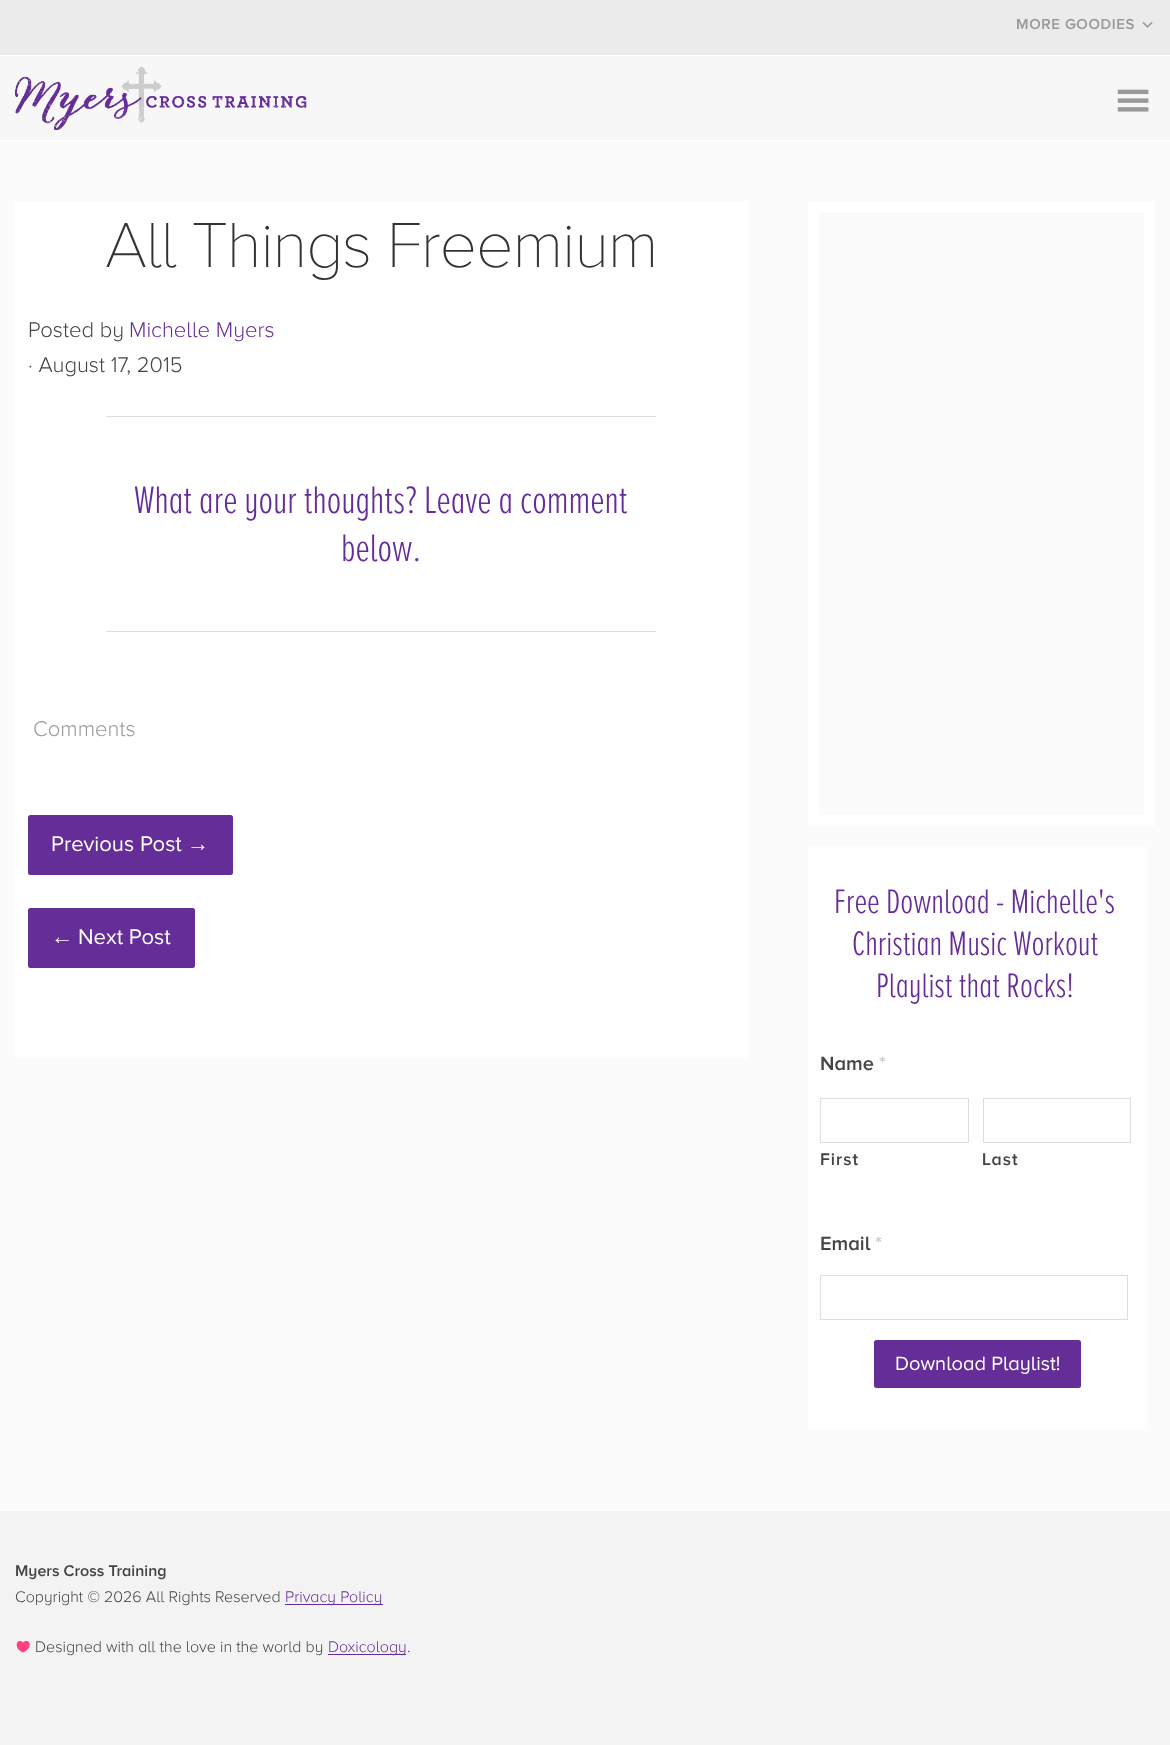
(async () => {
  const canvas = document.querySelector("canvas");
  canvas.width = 1170;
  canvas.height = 1745;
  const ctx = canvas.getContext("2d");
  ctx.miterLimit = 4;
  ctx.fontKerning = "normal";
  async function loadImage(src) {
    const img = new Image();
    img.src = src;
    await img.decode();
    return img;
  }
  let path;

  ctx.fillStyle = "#f3f3f3";
  ctx.fillRect(0, 0, 1170, 1745);
  ctx.fillStyle = "#ebebeb";
  ctx.fillRect(0, 0, 1170, 55);
  ctx.fillStyle = "#ffffff";
  ctx.fillRect(0, 55, 1170, 1);
  ctx.drawImage(await loadImage("img/1.png"), 1142, 22, 11, 6);
  ctx.fillStyle = "#f7f7f7";
  ctx.fillRect(0, 56, 1170, 84);
  ctx.fillStyle = "#ffffff";
  ctx.fillRect(0, 140, 1170, 1);
  ctx.drawImage(await loadImage("img/2.png"), 15, 66, 292, 64);
  ctx.drawImage(await loadImage("img/3.png"), 1117, 89, 32, 23);
  for (const [x, y, w, h, color] of [
    [0, 141, 1170, 1369, "#fbfbfb"],
    [15, 201, 733, 857, "#ffffff"],
    [106, 416, 550, 1, "#dddddd"],
    [106, 631, 550, 1, "#dddddd"],
  ]) {
    ctx.fillStyle = color;
    ctx.fillRect(x, y, w, h);
  }
  ctx.fillStyle = "#652d97";
  ctx.beginPath();
  ctx.roundRect(28, 815, 205, 60, 2.5);
  ctx.fill();
  ctx.beginPath();
  ctx.roundRect(28, 908, 167, 60, 2.5);
  ctx.fill();
  ctx.strokeStyle = "#ffffff";
  ctx.lineWidth = 11;
  ctx.strokeRect(813.5, 206.5, 336, 614);
  ctx.fillStyle = "#fefefe";
  ctx.fillRect(808, 846, 340, 584);
  ctx.strokeStyle = "#dddddd";
  ctx.lineWidth = 1;
  ctx.strokeRect(820.5, 1098.5, 148, 44);
  ctx.strokeRect(983.5, 1098.5, 147, 44);
  ctx.strokeRect(820.5, 1275.5, 307, 44);
  ctx.fillStyle = "#652d97";
  ctx.beginPath();
  ctx.roundRect(874, 1340, 207, 48, 2.5);
  ctx.fill();
  ctx.fillStyle = "#ffffff";
  ctx.fillRect(0, 1510, 1170, 1);
  ctx.fillStyle = "#642c96";
  ctx.fillRect(285, 1604, 98, 1);
  ctx.fillStyle = "#ff4081";
  path = new Path2D("M23 1652.5C34 1648 29.5 1637 23 1642.5C17 1637 12.5 1648 23 1652.5Z");
  ctx.fill(path);
  ctx.fillStyle = "#642c96";
  ctx.fillRect(328, 1654, 78, 1);
  ctx.letterSpacing = "0.6px";
  ctx.font = "600 15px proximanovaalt";
  ctx.fillStyle = "#999999";
  ctx.fillText("MORE GOODIES", 1016, 29);
  ctx.letterSpacing = "-1.25px";
  ctx.font = "300 66px proximanovaalt";
  ctx.fillStyle = "#333333";
  ctx.fillText("All Things Freemium", 105, 267);
  ctx.letterSpacing = "0px";
  ctx.font = "300 22px 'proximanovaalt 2'";
  ctx.fillStyle = "#444444";
  ctx.fillText("Posted by", 28, 337);
  ctx.fillStyle = "#652d97";
  ctx.fillText("Michelle Myers", 129, 337);
  ctx.fillStyle = "#444444";
  ctx.fillText("· August 17, 2015", 28, 372);
  ctx.font = "300 39.6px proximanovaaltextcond";
  ctx.fillStyle = "#652d97";
  ctx.fillText("What are your thoughts? Leave a comment", 134, 513);
  ctx.fillText("below.", 341, 561);
  ctx.font = "300 22px 'proximanovaalt 2'";
  ctx.fillStyle = "#999999";
  ctx.fillText("Comments", 33, 736);
  ctx.font = "22px proximanovaalt";
  ctx.fillStyle = "#ffffff";
  ctx.fillText("Previous Post", 51, 851);
  ctx.font = "22px Liberation Sans";
  ctx.fillText("→", 187, 851);
  ctx.fillText("←", 51, 944);
  ctx.font = "22px proximanovaalt";
  ctx.fillText("Next Post", 78, 944);
  ctx.font = "300 35.25px proximanovaaltextcond";
  ctx.fillStyle = "#652d97";
  for (const [text, x, y] of [
    ["Free Download - Michelle's", 834, 913],
    ["Christian Music Workout", 852, 955],
    ["Playlist that Rocks!", 876, 997],
  ]) {
    ctx.fillText(text, x, y);
  }
  ctx.font = "600 20px proximanovaalt";
  ctx.fillStyle = "#444444";
  ctx.fillText("Name", 820, 1070);
  ctx.fillStyle = "#cccccc";
  ctx.fillText("*", 879, 1070);
  ctx.letterSpacing = "1px";
  ctx.font = "600 17.5px proximanovaalt";
  ctx.fillStyle = "#444444";
  ctx.fillText("First", 820, 1165);
  ctx.fillText("Last", 982, 1165);
  ctx.letterSpacing = "0px";
  ctx.font = "600 20px proximanovaalt";
  ctx.fillText("Email", 820, 1250);
  ctx.fillStyle = "#cccccc";
  ctx.fillText("*", 875, 1250);
  ctx.font = "20px proximanovaalt";
  ctx.fillStyle = "#ffffff";
  ctx.fillText("Download Playlist!", 895, 1370);
  ctx.font = "600 16px proximanovaalt";
  ctx.fillStyle = "#444444";
  ctx.fillText("Myers Cross Training", 15, 1576);
  ctx.font = "300 16px 'proximanovaalt 2'";
  ctx.fillText("Copyright © 2026 All Rights Reserved", 15, 1602);
  ctx.fillStyle = "#652d97";
  ctx.fillText("Privacy Policy", 285, 1602);
  ctx.fillStyle = "#444444";
  ctx.fillText("Designed with all the love in the world by", 35, 1652);
  ctx.fillStyle = "#652d97";
  ctx.fillText("Doxicology", 328, 1652);
  ctx.fillStyle = "#444444";
  ctx.fillText(".", 407, 1652);
})();
